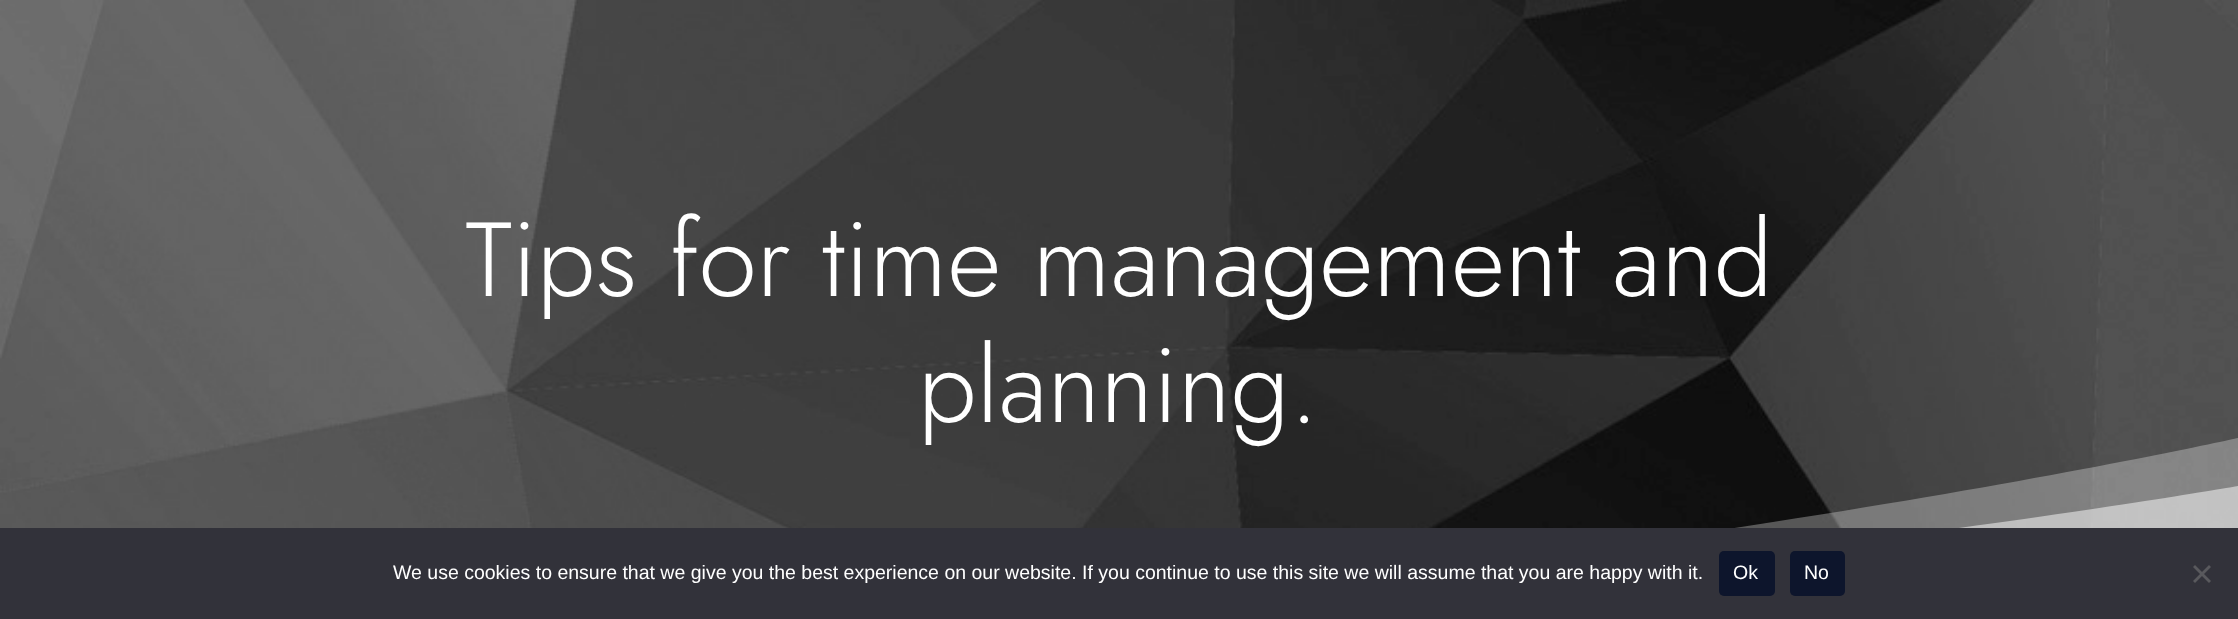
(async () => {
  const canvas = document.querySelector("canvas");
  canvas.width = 2238;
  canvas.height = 619;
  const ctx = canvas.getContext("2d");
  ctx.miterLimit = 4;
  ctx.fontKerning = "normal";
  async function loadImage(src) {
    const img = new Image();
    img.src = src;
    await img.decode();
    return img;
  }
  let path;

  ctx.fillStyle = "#ffffff";
  ctx.fillRect(0, 0, 2238, 619);
  ctx.drawImage(await loadImage("img/1.png"), 0, 0, 2238, 528);
  ctx.fillStyle = "rgba(255, 255, 255, 0.3)";
  path = new Path2D("M2238 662H0C1236 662 2238 438 2238 438Z");
  ctx.fill(path);
  ctx.fillStyle = "rgba(255, 255, 255, 0.5)";
  path = new Path2D("M2238 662H0C1236 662 2238 486 2238 486Z");
  ctx.fill(path);
  ctx.fillStyle = "#32323a";
  ctx.fillRect(0, 528, 2238, 91);
  ctx.fillStyle = "#0d152c";
  ctx.beginPath();
  ctx.roundRect(1719, 551, 56, 45, 5);
  ctx.fill();
  ctx.beginPath();
  ctx.roundRect(1790, 551, 55, 45, 5);
  ctx.fill();
  ctx.fillStyle = "#59595d";
  path = new Path2D("M2209 565L2211 567L2195 583L2193 581Z");
  ctx.fill(path);
  path = new Path2D("M2193 567L2195 565L2211 581L2209 583Z");
  ctx.fill(path);
  ctx.font = "300 105px Jost";
  ctx.fillStyle = "#ffffff";
  ctx.fillText("Tips for time management and", 465, 296);
  ctx.fillText("planning.", 918, 422);
  ctx.font = "19.5px Liberation Sans";
  for (const [text, x, y] of [
    ["We use cookies to ensure that we give you the best experience on our website. If you continue to use this site we will assume that you are happy with it.", 393, 579],
    ["Ok", 1733, 579],
    ["No", 1804, 579],
  ]) {
    ctx.fillText(text, x, y);
  }
})();
